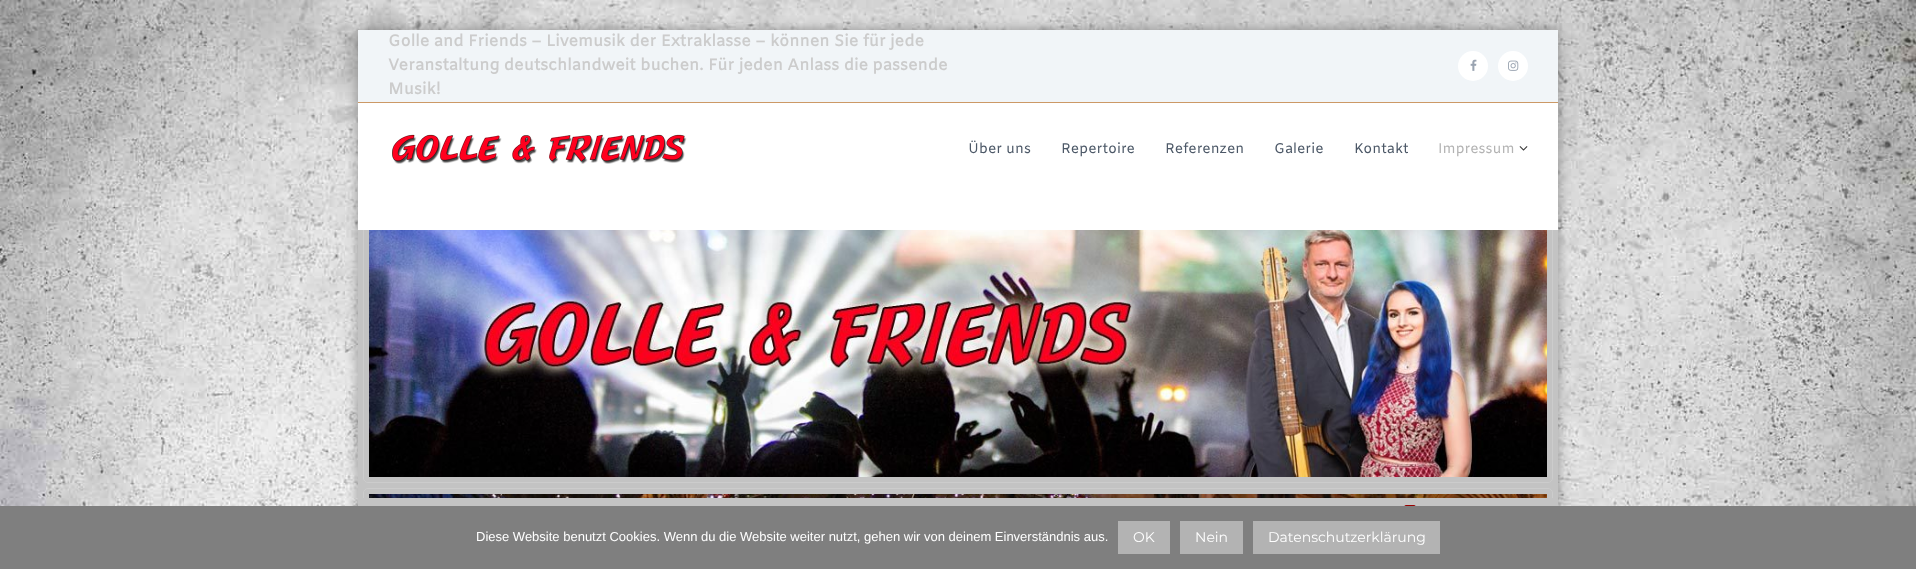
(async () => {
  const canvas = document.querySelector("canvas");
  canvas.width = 1916;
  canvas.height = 569;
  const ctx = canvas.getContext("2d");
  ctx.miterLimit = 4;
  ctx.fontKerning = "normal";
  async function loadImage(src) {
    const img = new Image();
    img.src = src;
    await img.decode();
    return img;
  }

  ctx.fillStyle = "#ffffff";
  ctx.fillRect(0, 0, 1916, 569);
  ctx.drawImage(await loadImage("img/1.png"), 0, 0, 1916, 506);
  ctx.fillStyle = "rgba(0, 0, 0, 0.3)";
  ctx.filter = "blur(6px)";
  ctx.beginPath();
  ctx.rect(357, 29, 1202, 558);
  ctx.fill();
  ctx.filter = "none";
  for (const [x, y, w, h, color] of [
    [358, 103, 1200, 127, "#ffffff"],
    [358, 30, 1200, 72, "#f1f5f8"],
    [358, 102, 1200, 1, "#cc9966"],
  ]) {
    ctx.fillStyle = color;
    ctx.fillRect(x, y, w, h);
  }
  ctx.fillStyle = "#ffffff";
  ctx.beginPath();
  ctx.arc(1473, 66, 15, 0, Math.PI * 2);
  ctx.fill();
  ctx.drawImage(await loadImage("img/2.png"), 1470, 59, 7, 12);
  ctx.beginPath();
  ctx.arc(1513, 66, 15, 0, Math.PI * 2);
  ctx.fill();
  ctx.drawImage(await loadImage("img/3.png"), 1508, 60, 11, 11);
  ctx.drawImage(await loadImage("img/4.png"), 392, 134, 295, 30);
  ctx.drawImage(await loadImage("img/5.png"), 1519, 146, 9, 5);
  ctx.fillStyle = "#c3c3c3";
  ctx.fillRect(358, 230, 1200, 276);
  ctx.save();
  ctx.beginPath();
  ctx.rect(358, 230, 1200, 268);
  ctx.clip();
  ctx.beginPath();
  ctx.roundRect(363.5, 215.5, 1189, 267, 4.5);
  ctx.strokeStyle = "#cccccc";
  ctx.stroke();
  ctx.restore();
  ctx.drawImage(await loadImage("img/6.png"), 369, 230, 1178, 247);
  ctx.save();
  ctx.beginPath();
  ctx.rect(358, 230, 1200, 268);
  ctx.clip();
  ctx.beginPath();
  ctx.roundRect(363.5, 488.5, 1189, 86, 4.5);
  ctx.strokeStyle = "#cccccc";
  ctx.stroke();
  ctx.restore();
  ctx.drawImage(await loadImage("img/7.png"), 369, 494, 1178, 4);
  ctx.drawImage(await loadImage("img/8.png"), 1404, 505, 12, 1);
  for (const [x, y, w, h, color] of [
    [0, 506, 1916, 63, "#7f7f7f"],
    [1118, 521, 52, 33, "#b3b3b3"],
    [1180, 521, 63, 33, "#b3b3b3"],
    [1253, 521, 187, 33, "#b3b3b3"],
  ]) {
    ctx.fillStyle = color;
    ctx.fillRect(x, y, w, h);
  }
  ctx.font = "bold 16px Amiko";
  ctx.fillStyle = "#cccccc";
  for (const [text, x, y] of [
    ["Golle and Friends – Livemusik der Extraklasse – können Sie für jede", 388, 46],
    ["Veranstaltung deutschlandweit buchen. Für jeden Anlass die passende", 388, 70],
    ["Musik!", 388, 94],
  ]) {
    ctx.fillText(text, x, y);
  }
  ctx.font = "14px Amiko";
  ctx.fillStyle = "#4c5867";
  for (const [text, x, y] of [
    ["Über uns", 968, 153],
    ["Repertoire", 1061, 153],
    ["Referenzen", 1165, 153],
    ["Galerie", 1274, 153],
    ["Kontakt", 1354, 153],
  ]) {
    ctx.fillText(text, x, y);
  }
  ctx.fillStyle = "#b3b3b3";
  ctx.fillText("Impressum", 1438, 153);
  ctx.font = "13px Liberation Sans";
  ctx.fillStyle = "#ffffff";
  ctx.fillText("Diese Website benutzt Cookies. Wenn du die Website weiter nutzt, gehen wir von deinem Einverständnis aus.", 476, 541);
  ctx.font = "14px Montserrat";
  for (const [text, x, y] of [
    ["OK", 1133, 542],
    ["Nein", 1195, 542],
    ["Datenschutzerklärung", 1268, 542],
  ]) {
    ctx.fillText(text, x, y);
  }
})();
